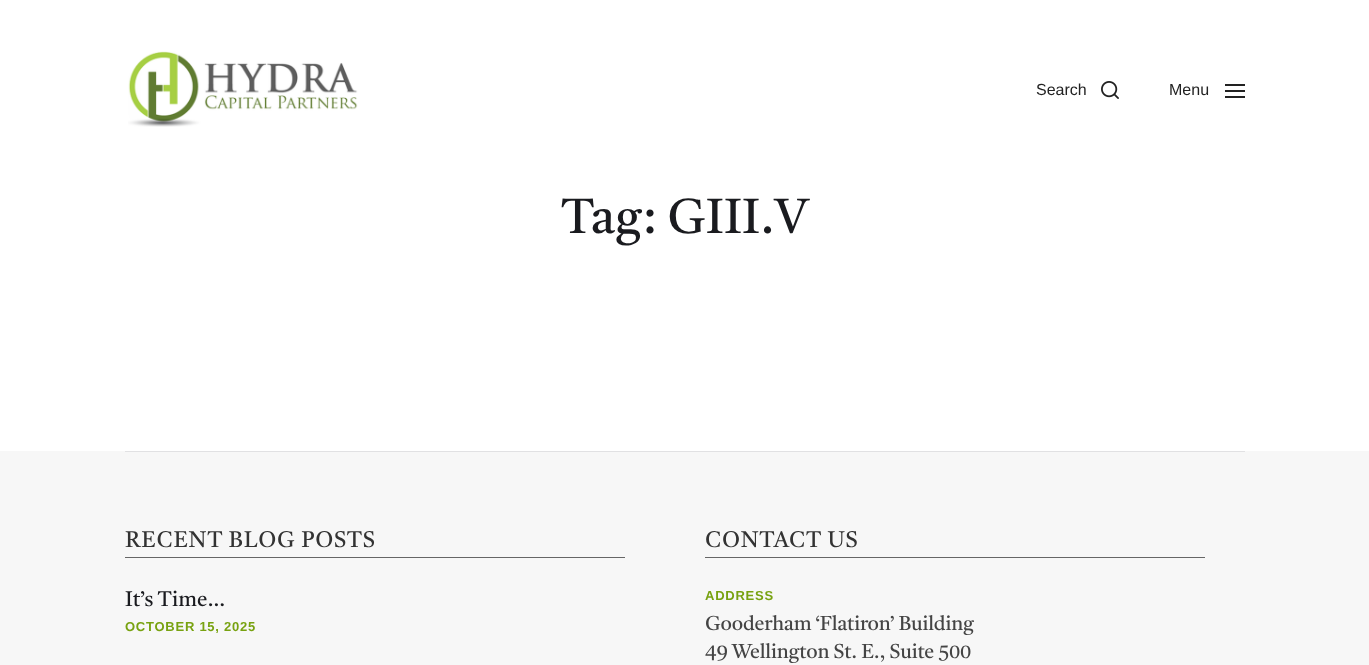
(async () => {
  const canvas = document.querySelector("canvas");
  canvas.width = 1369;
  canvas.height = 665;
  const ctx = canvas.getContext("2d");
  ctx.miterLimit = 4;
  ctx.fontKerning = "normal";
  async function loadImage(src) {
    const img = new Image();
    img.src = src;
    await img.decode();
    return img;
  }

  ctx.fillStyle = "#ffffff";
  ctx.fillRect(0, 0, 1369, 665);
  ctx.drawImage(await loadImage("img/1.png"), 128, 51, 230, 76);
  ctx.drawImage(await loadImage("img/2.png"), 1101, 81, 18, 18);
  for (const [x, y, w, h, color] of [
    [1225, 84, 20, 2, "#222222"],
    [1225, 90, 20, 2, "#222222"],
    [1225, 96, 20, 2, "#222222"],
    [0, 451, 1369, 214, "#f7f7f7"],
    [125, 451, 1120, 1, "#e1e1e3"],
    [125, 557, 500, 1, "#666666"],
    [705, 557, 500, 1, "#666666"],
  ]) {
    ctx.fillStyle = color;
    ctx.fillRect(x, y, w, h);
  }
  ctx.font = "16px Liberation Sans";
  ctx.fillStyle = "#222222";
  ctx.fillText("Search", 1036, 95);
  ctx.fillText("Menu", 1169, 95);
  ctx.font = "49px Castoro";
  ctx.fillStyle = "#1a1b1f";
  ctx.fillText("Tag: GIII.V", 561, 233);
  ctx.letterSpacing = "0.75px";
  ctx.font = "22.5px Castoro";
  ctx.fillStyle = "#333333";
  ctx.fillText("RECENT BLOG POSTS", 125, 547);
  ctx.letterSpacing = "0px";
  ctx.font = "21px Castoro";
  ctx.fillStyle = "#1a1b1f";
  ctx.fillText("It’s Time…", 125, 606);
  ctx.letterSpacing = "0.75px";
  ctx.font = "bold 13px Liberation Sans";
  ctx.fillStyle = "#78a211";
  ctx.fillText("OCTOBER 15, 2025", 125, 631);
  ctx.font = "22.5px Castoro";
  ctx.fillStyle = "#333333";
  ctx.fillText("CONTACT US", 705, 547);
  ctx.font = "bold 13px Liberation Sans";
  ctx.fillStyle = "#78a211";
  ctx.fillText("ADDRESS", 705, 600);
  ctx.letterSpacing = "-0.2px";
  ctx.font = "20px Castoro";
  ctx.fillStyle = "#444444";
  ctx.fillText("Gooderham ‘Flatiron’ Building", 705, 630);
  ctx.fillText("49 Wellington St. E., Suite 500", 705, 658);
})();
